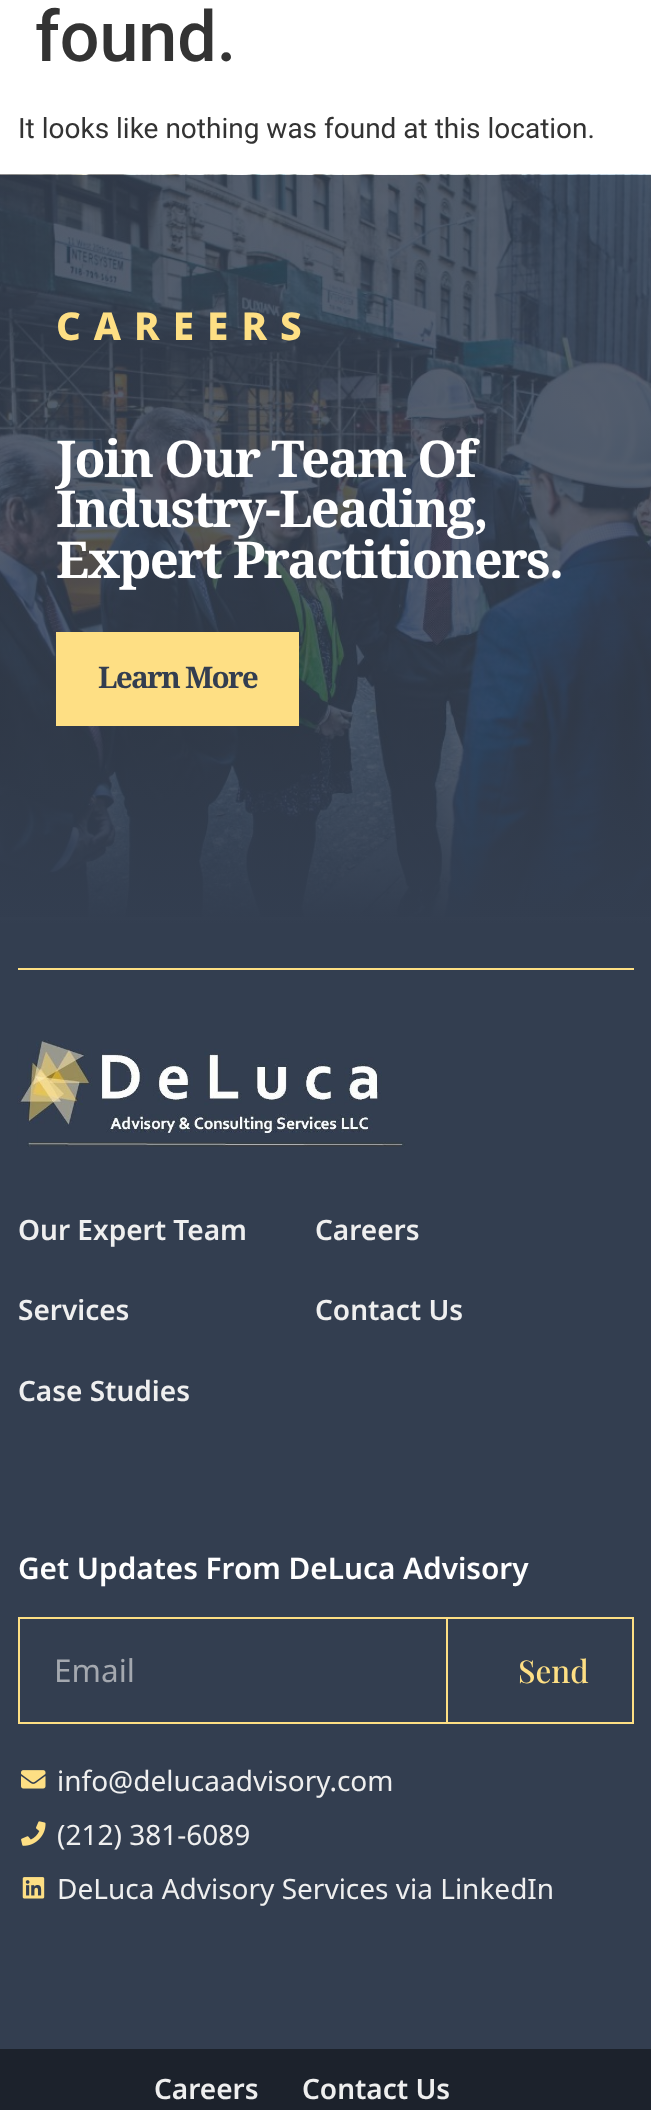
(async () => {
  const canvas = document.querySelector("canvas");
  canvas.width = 651;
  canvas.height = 2110;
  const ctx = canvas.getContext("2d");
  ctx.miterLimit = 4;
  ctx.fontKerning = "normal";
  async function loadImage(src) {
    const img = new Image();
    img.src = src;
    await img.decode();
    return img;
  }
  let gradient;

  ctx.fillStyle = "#ffffff";
  ctx.fillRect(0, 0, 651, 2110);
  ctx.drawImage(await loadImage("img/1.png"), 0, 174, 651, 743);
  gradient = ctx.createLinearGradient(325, 175, 326, 924);
  gradient.addColorStop(0.72, "rgba(51, 62, 80, 0.83)");
  gradient.addColorStop(1, "#333e50");
  ctx.fillStyle = gradient;
  ctx.fillRect(0, 175, 651, 749);
  for (const [x, y, w, h, color] of [
    [56, 632, 243, 94, "#fedf84"],
    [0, 924, 651, 1125, "#333e50"],
    [18, 968, 616, 2, "#fedf84"],
  ]) {
    ctx.fillStyle = color;
    ctx.fillRect(x, y, w, h);
  }
  ctx.drawImage(await loadImage("img/2.png"), 17, 1040, 388, 107);
  ctx.strokeStyle = "#fedf84";
  ctx.lineWidth = 2;
  ctx.strokeRect(19, 1618, 614, 105);
  ctx.fillRect(446, 1619, 2, 103);
  ctx.drawImage(await loadImage("img/3.png"), 21, 1770, 25, 19);
  ctx.drawImage(await loadImage("img/4.png"), 21, 1821, 25, 25);
  ctx.drawImage(await loadImage("img/5.png"), 22, 1877, 23, 22);
  ctx.fillStyle = "#1c222c";
  ctx.fillRect(0, 2049, 651, 61);
  ctx.font = "500 70px Roboto";
  ctx.fillStyle = "#333333";
  ctx.fillText("found.", 35, 61);
  ctx.font = "28px Roboto";
  ctx.fillText("It looks like nothing was found at this location.", 18, 138);
  ctx.letterSpacing = "13px";
  ctx.font = "800 38.5px Noto Sans";
  ctx.fillStyle = "#fedf84";
  ctx.fillText("CAREERS", 56, 340);
  ctx.letterSpacing = "-1.6px";
  ctx.font = "bold 50.75px Noto Serif";
  ctx.fillStyle = "#ffffff";
  for (const [text, x, y] of [
    ["Join Our Team Of", 56, 477],
    ["Industry-Leading,", 56, 527],
    ["Expert Practitioners.", 56, 578],
  ]) {
    ctx.fillText(text, x, y);
  }
  ctx.letterSpacing = "-1.75px";
  ctx.font = "bold 29.75px Noto Serif";
  ctx.fillStyle = "#333e50";
  ctx.fillText("Learn More", 98, 688);
  ctx.letterSpacing = "0px";
  ctx.font = "600 28px Noto Sans";
  ctx.fillStyle = "#efefef";
  for (const [text, x, y] of [
    ["Our Expert Team", 18, 1240],
    ["Services", 18, 1320],
    ["Case Studies", 18, 1401],
    ["Careers", 315, 1240],
    ["Contact Us", 315, 1320],
  ]) {
    ctx.fillText(text, x, y);
  }
  ctx.font = "600 29.75px Noto Sans";
  ctx.fillStyle = "#ffffff";
  ctx.fillText("Get Updates From DeLuca Advisory", 18, 1579);
  ctx.font = "31.5px Noto Sans";
  ctx.fillStyle = "#a4a8af";
  ctx.fillText("Email", 54, 1682);
  ctx.font = "500 31.5px Playfair Display";
  ctx.fillStyle = "#fedf84";
  ctx.fillText("Send", 518, 1683);
  ctx.font = "28px Noto Sans";
  ctx.fillStyle = "#efefef";
  for (const [text, x, y] of [
    ["info@delucaadvisory.com", 57, 1791],
    ["(212) 381-6089", 57, 1845],
    ["DeLuca Advisory Services via LinkedIn", 57, 1899],
  ]) {
    ctx.fillText(text, x, y);
  }
  ctx.font = "600 28px Noto Sans";
  ctx.fillText("Careers", 154, 2099);
  ctx.fillText("Contact Us", 302, 2099);
})();
